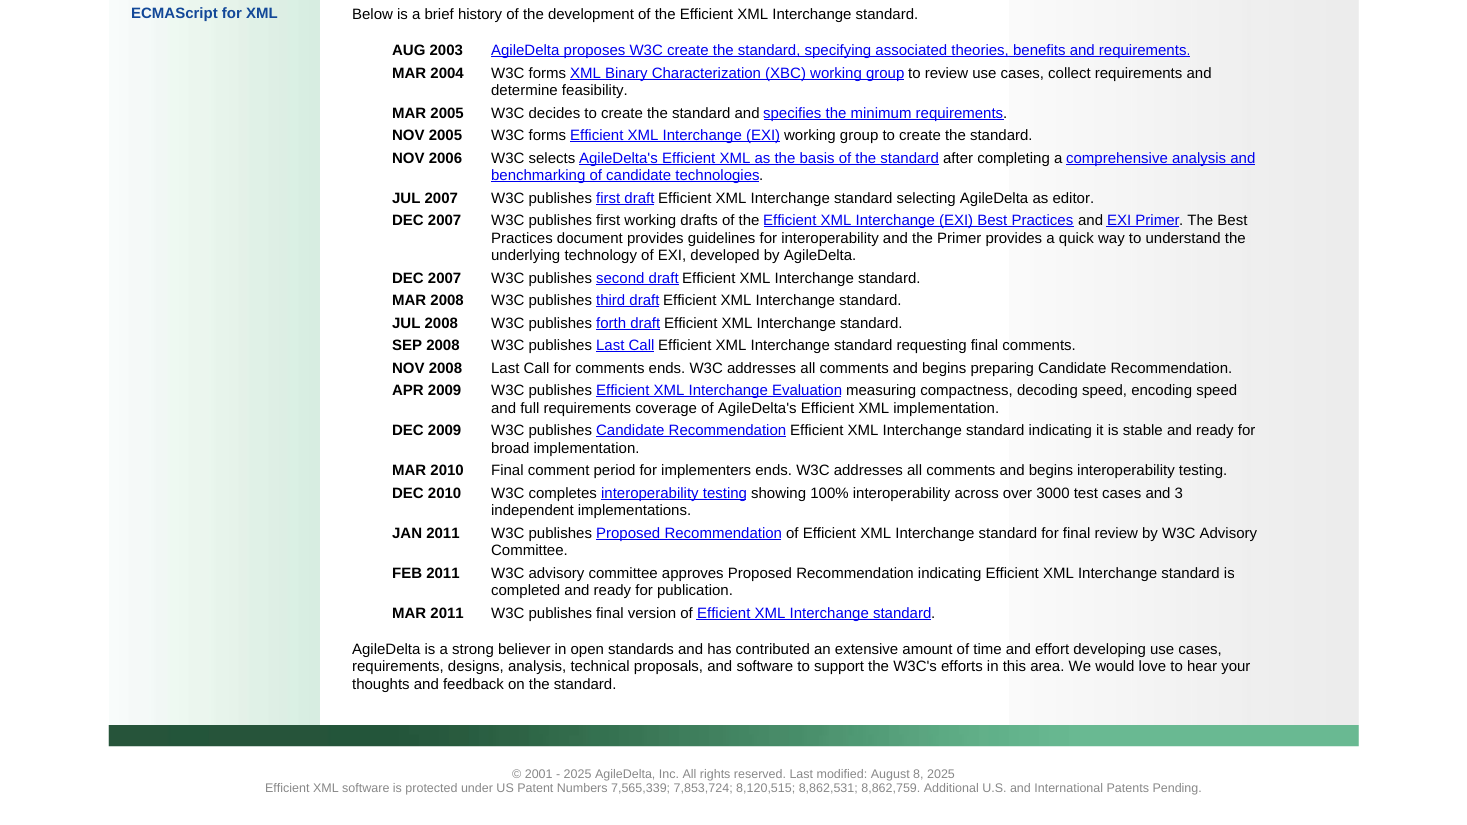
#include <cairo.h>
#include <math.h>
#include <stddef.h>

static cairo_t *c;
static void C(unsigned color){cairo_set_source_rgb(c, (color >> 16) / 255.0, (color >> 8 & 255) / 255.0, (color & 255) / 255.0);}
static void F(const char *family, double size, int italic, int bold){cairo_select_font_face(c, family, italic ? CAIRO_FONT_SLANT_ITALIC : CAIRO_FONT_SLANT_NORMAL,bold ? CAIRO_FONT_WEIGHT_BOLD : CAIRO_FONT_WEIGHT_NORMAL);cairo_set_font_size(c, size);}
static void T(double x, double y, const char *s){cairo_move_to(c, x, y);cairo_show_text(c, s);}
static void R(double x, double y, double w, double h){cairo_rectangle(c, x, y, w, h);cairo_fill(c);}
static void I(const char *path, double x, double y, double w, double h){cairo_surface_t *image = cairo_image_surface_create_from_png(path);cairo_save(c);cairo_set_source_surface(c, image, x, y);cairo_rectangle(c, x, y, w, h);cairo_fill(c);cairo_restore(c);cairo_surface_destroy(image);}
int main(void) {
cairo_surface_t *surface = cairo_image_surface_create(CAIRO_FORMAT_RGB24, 1467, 825);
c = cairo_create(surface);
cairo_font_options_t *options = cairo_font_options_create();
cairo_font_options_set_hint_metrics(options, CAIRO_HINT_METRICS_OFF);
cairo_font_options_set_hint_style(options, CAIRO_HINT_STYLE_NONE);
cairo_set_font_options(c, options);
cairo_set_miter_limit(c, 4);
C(0xffffff);
cairo_paint(c);
I("1.png",109,0,211,725);
F("Liberation Sans",15,0,1);
C(0x134898);
T(131,18,"ECMAScript for XML");
I("2.png",1009,0,350,725);
F("Liberation Sans",15,0,0);
C(0x000000);
T(352,19,"Below is a brief history of the development of the Efficient XML Interchange standard.");
F("Liberation Sans",15,0,1);
T(392,55,"AUG 2003");
C(0x0000ee);
R(491,56,699,1);
F("Liberation Sans",15,0,0);
T(491,55,"AgileDelta proposes W3C create the standard, specifying associated theories, benefits and requirements.");
F("Liberation Sans",15,0,1);
C(0x000000);
T(392,78,"MAR 2004");
F("Liberation Sans",15,0,0);
T(491,78,"W3C forms");
C(0x0000ee);
R(570,79,334,1);
T(570,78,"XML Binary Characterization (XBC) working group");
C(0x000000);
T(908,78,"to review use cases, collect requirements and");
T(491,95,"determine feasibility.");
F("Liberation Sans",15,0,1);
T(392,118,"MAR 2005");
F("Liberation Sans",15,0,0);
T(491,118,"W3C decides to create the standard and");
C(0x0000ee);
R(764,119,240,1);
T(763,118,"specifies the minimum requirements");
C(0x000000);
T(1003,118,".");
F("Liberation Sans",15,0,1);
T(392,140,"NOV 2005");
F("Liberation Sans",15,0,0);
T(491,140,"W3C forms");
C(0x0000ee);
R(570,141,210,1);
T(570,140,"Efficient XML Interchange (EXI)");
C(0x000000);
T(784,140,"working group to create the standard.");
F("Liberation Sans",15,0,1);
T(392,163,"NOV 2006");
F("Liberation Sans",15,0,0);
T(491,163,"W3C selects");
C(0x0000ee);
R(579,164,360,1);
T(579,163,"AgileDelta's Efficient XML as the basis of the standard");
C(0x000000);
T(943,163,"after completing a");
C(0x0000ee);
R(1066,164,189,1);
T(1066,163,"comprehensive analysis and");
R(491,181,268,1);
T(491,180,"benchmarking of candidate technologies");
C(0x000000);
T(759,180,".");
F("Liberation Sans",15,0,1);
T(392,203,"JUL 2007");
F("Liberation Sans",15,0,0);
T(491,203,"W3C publishes");
C(0x0000ee);
T(596,203,"first draft");
R(596,204,58,1);
C(0x000000);
T(658,203,"Efficient XML Interchange standard selecting AgileDelta as editor.");
F("Liberation Sans",15,0,1);
T(392,225,"DEC 2007");
F("Liberation Sans",15,0,0);
T(491,225,"W3C publishes first working drafts of the");
C(0x0000ee);
R(764,226,310,1);
T(763,225,"Efficient XML Interchange (EXI) Best Practices");
C(0x000000);
T(1078,225,"and");
C(0x0000ee);
T(1107,225,"EXI Primer");
R(1106,226,73,1);
C(0x000000);
T(1179,225,". The Best");
T(491,243,"Practices document provides guidelines for interoperability and the Primer provides a quick way to understand the");
T(491,260,"underlying technology of EXI, developed by AgileDelta.");
F("Liberation Sans",15,0,1);
T(392,283,"DEC 2007");
F("Liberation Sans",15,0,0);
T(491,283,"W3C publishes");
C(0x0000ee);
T(596,283,"second draft");
R(596,284,83,1);
C(0x000000);
T(682,283,"Efficient XML Interchange standard.");
F("Liberation Sans",15,0,1);
T(392,305,"MAR 2008");
F("Liberation Sans",15,0,0);
T(491,305,"W3C publishes");
C(0x0000ee);
T(596,305,"third draft");
R(596,306,63,1);
C(0x000000);
T(663,305,"Efficient XML Interchange standard.");
F("Liberation Sans",15,0,1);
T(392,328,"JUL 2008");
F("Liberation Sans",15,0,0);
T(491,328,"W3C publishes");
C(0x0000ee);
T(596,328,"forth draft");
R(596,329,64,1);
C(0x000000);
T(664,328,"Efficient XML Interchange standard.");
F("Liberation Sans",15,0,1);
T(392,350,"SEP 2008");
F("Liberation Sans",15,0,0);
T(491,350,"W3C publishes");
C(0x0000ee);
T(596,350,"Last Call");
R(596,351,58,1);
C(0x000000);
T(658,350,"Efficient XML Interchange standard requesting final comments.");
F("Liberation Sans",15,0,1);
T(392,373,"NOV 2008");
F("Liberation Sans",15,0,0);
T(491,373,"Last Call for comments ends. W3C addresses all comments and begins preparing Candidate Recommendation.");
F("Liberation Sans",15,0,1);
T(392,395,"APR 2009");
F("Liberation Sans",15,0,0);
T(491,395,"W3C publishes");
C(0x0000ee);
R(596,396,245,1);
T(596,395,"Efficient XML Interchange Evaluation");
C(0x000000);
T(846,395,"measuring compactness, decoding speed, encoding speed");
T(491,413,"and full requirements coverage of AgileDelta's Efficient XML implementation.");
F("Liberation Sans",15,0,1);
T(392,435,"DEC 2009");
F("Liberation Sans",15,0,0);
T(491,435,"W3C publishes");
C(0x0000ee);
T(596,435,"Candidate Recommendation");
R(596,436,190,1);
C(0x000000);
T(790,435,"Efficient XML Interchange standard indicating it is stable and ready for");
T(491,453,"broad implementation.");
F("Liberation Sans",15,0,1);
T(392,475,"MAR 2010");
F("Liberation Sans",15,0,0);
T(491,475,"Final comment period for implementers ends. W3C addresses all comments and begins interoperability testing.");
F("Liberation Sans",15,0,1);
T(392,498,"DEC 2010");
F("Liberation Sans",15,0,0);
T(491,498,"W3C completes");
C(0x0000ee);
R(601,499,145,1);
T(601,498,"interoperability testing");
C(0x000000);
T(751,498,"showing 100% interoperability across over 3000 test cases and 3");
T(491,515,"independent implementations.");
F("Liberation Sans",15,0,1);
T(392,538,"JAN 2011");
F("Liberation Sans",15,0,0);
T(491,538,"W3C publishes");
C(0x0000ee);
R(596,539,185,1);
T(596,538,"Proposed Recommendation");
C(0x000000);
T(786,538,"of Efficient XML Interchange standard for final review by W3C Advisory");
T(491,555,"Committee.");
F("Liberation Sans",15,0,1);
T(392,578,"FEB 2011");
F("Liberation Sans",15,0,0);
T(491,578,"W3C advisory committee approves Proposed Recommendation indicating Efficient XML Interchange standard is");
T(491,595,"completed and ready for publication.");
F("Liberation Sans",15,0,1);
T(392,618,"MAR 2011");
F("Liberation Sans",15,0,0);
T(491,618,"W3C publishes final version of");
C(0x0000ee);
R(696,619,235,1);
T(697,618,"Efficient XML Interchange standard");
C(0x000000);
T(931,618,".");
T(352,654,"AgileDelta is a strong believer in open standards and has contributed an extensive amount of time and effort developing use cases,");
T(352,671,"requirements, designs, analysis, technical proposals, and software to support the W3C's efforts in this area. We would love to hear your");
T(352,689,"thoughts and feedback on the standard.");
I("3.png",108,725,1251,22);
F("Liberation Sans",12.5,0,0);
C(0x888888);
T(512,778,"© 2001 - 2025 AgileDelta, Inc. All rights reserved. Last modified: August 8, 2025");
T(265,792,"Efficient XML software is protected under US Patent Numbers 7,565,339; 7,853,724; 8,120,515; 8,862,531; 8,862,759. Additional U.S. and International Patents Pending.");
cairo_surface_write_to_png(surface, "o.png");
cairo_font_options_destroy(options);
cairo_destroy(c);
cairo_surface_destroy(surface);
return 0;
}
